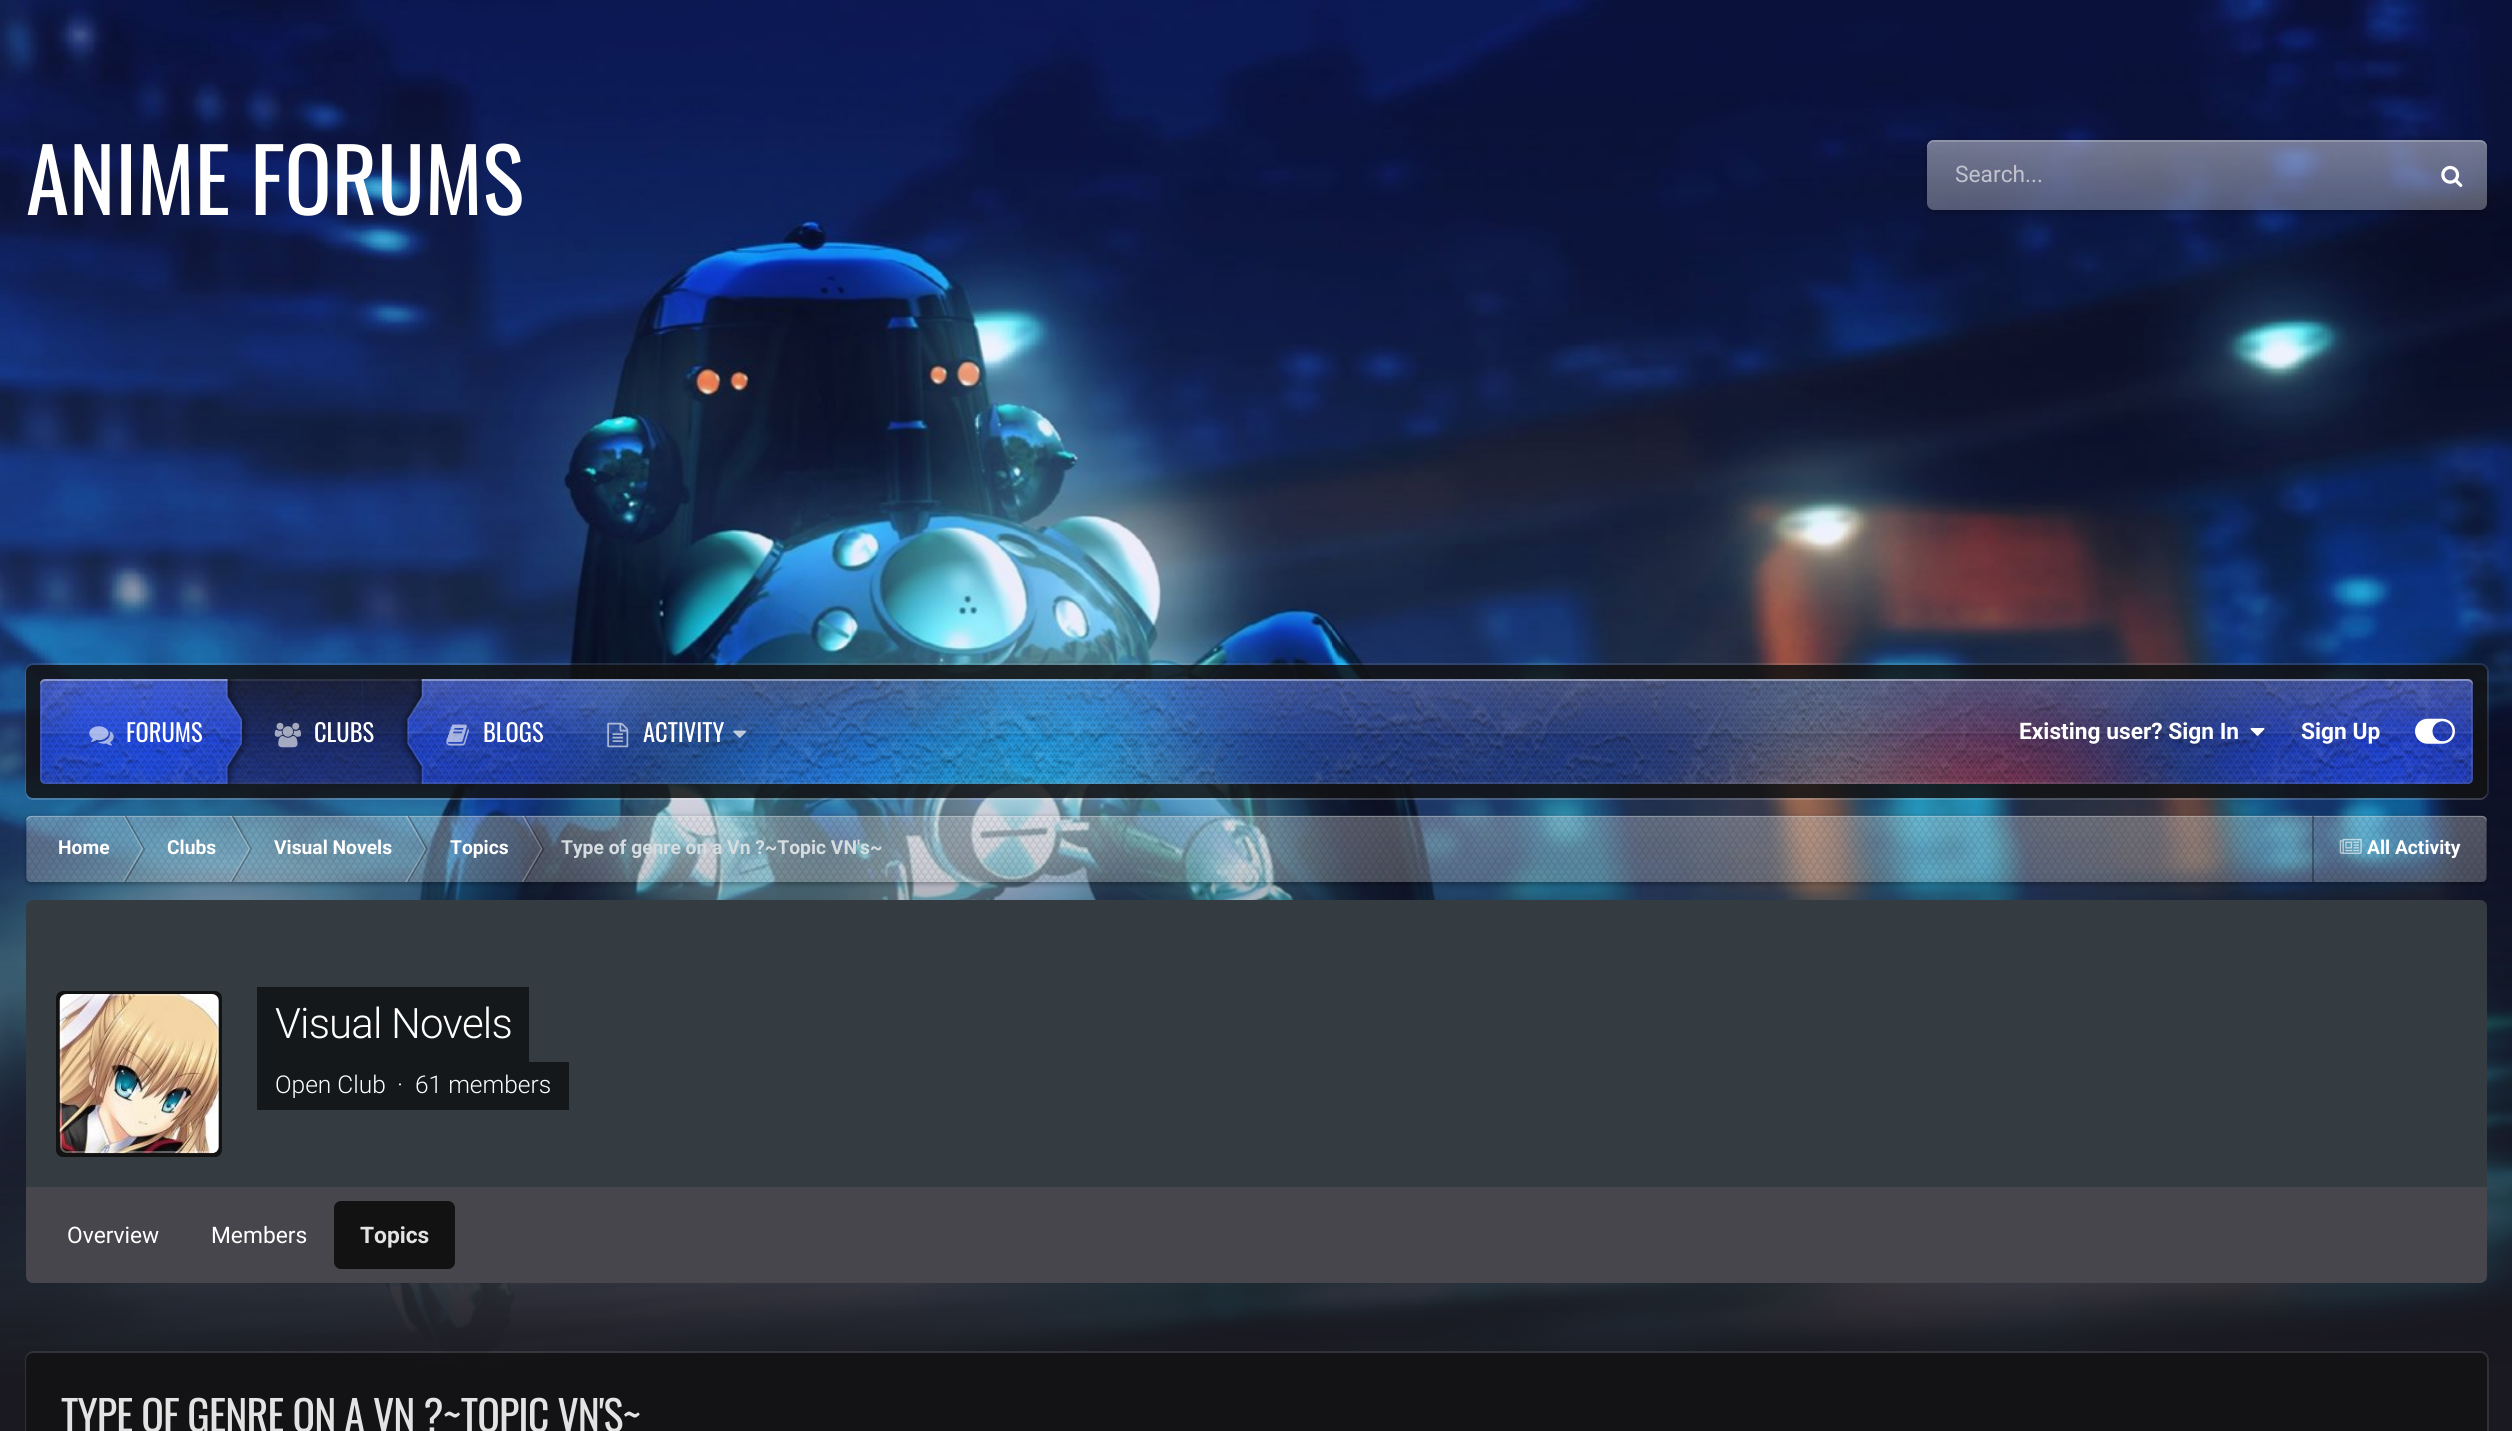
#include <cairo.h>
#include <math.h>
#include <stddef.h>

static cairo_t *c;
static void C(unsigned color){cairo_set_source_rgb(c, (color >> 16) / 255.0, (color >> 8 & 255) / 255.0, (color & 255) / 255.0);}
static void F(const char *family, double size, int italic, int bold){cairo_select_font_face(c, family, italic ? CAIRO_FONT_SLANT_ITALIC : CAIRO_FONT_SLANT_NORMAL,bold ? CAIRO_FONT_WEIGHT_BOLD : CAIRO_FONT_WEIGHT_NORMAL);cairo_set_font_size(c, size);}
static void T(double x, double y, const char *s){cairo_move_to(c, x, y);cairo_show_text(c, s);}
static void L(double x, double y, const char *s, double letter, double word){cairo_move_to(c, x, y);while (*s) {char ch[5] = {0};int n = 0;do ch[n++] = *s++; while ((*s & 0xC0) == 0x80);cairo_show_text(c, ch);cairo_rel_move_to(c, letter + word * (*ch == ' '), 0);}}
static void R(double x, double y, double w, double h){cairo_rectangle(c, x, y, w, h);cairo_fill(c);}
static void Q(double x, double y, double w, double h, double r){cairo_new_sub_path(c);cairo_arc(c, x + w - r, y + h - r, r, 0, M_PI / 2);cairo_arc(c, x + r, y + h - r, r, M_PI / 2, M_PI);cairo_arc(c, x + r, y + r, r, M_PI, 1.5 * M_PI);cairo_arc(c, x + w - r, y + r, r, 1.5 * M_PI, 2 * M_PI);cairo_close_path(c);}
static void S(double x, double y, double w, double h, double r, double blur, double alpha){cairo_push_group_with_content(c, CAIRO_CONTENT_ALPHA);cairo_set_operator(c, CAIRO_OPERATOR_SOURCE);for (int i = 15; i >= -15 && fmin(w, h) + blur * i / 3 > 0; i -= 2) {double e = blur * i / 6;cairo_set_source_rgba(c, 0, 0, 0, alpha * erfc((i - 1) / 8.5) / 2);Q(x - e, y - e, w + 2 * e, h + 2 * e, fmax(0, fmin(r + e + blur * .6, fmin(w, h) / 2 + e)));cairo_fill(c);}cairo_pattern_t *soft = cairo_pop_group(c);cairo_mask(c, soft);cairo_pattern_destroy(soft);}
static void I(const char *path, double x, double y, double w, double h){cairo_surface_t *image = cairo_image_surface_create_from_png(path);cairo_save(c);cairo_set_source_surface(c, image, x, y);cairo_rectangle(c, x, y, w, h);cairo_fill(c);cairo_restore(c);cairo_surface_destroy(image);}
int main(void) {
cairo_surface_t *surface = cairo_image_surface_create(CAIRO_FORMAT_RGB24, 2512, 1431);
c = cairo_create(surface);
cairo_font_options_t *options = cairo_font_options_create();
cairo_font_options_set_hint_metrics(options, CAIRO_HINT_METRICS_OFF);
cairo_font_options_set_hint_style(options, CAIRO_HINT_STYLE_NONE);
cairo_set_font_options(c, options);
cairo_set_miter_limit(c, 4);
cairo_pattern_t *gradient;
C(0x1a1921);
cairo_paint(c);
I("1.png",0,0,2512,1375);
gradient = cairo_pattern_create_linear(1257,707,1257,1414);
cairo_pattern_add_color_stop_rgba(gradient,0,0.102,0.098,0.129,0);
cairo_pattern_add_color_stop_rgba(gradient,.95,0.102,0.098,0.129,1);
cairo_set_source(c,gradient);
cairo_pattern_destroy(gradient);
R(0,721,2512,654);
F("Oswald",87.5,0,0);
C(0xffffff);
T(26,215,"ANIME FORUMS");
cairo_save(c);
cairo_set_fill_rule(c,CAIRO_FILL_RULE_EVEN_ODD);
cairo_new_path(c);
cairo_move_to(c,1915,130);
cairo_line_to(c,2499,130);
cairo_line_to(c,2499,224);
cairo_line_to(c,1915,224);
cairo_close_path(c);
cairo_move_to(c,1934,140);
cairo_line_to(c,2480,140);
cairo_curve_to(c,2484,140,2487,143,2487,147);
cairo_line_to(c,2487,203);
cairo_curve_to(c,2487,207,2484,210,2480,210);
cairo_line_to(c,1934,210);
cairo_curve_to(c,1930,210,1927,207,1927,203);
cairo_line_to(c,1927,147);
cairo_curve_to(c,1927,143,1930,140,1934,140);
cairo_close_path(c);
cairo_clip(c);
C(0x000000);
S(1927,142,560,70,7,3.5,.3);
cairo_restore(c);
gradient = cairo_pattern_create_linear(2207,140,2207,210);
cairo_pattern_add_color_stop_rgba(gradient,0,1,1,1,.43);
cairo_pattern_add_color_stop_rgba(gradient,1,1,1,1,.3);
cairo_set_source(c,gradient);
cairo_pattern_destroy(gradient);
Q(1927,140,560,70,7);
cairo_fill(c);
cairo_set_source_rgba(c,1,1,1,0.2);
cairo_new_path(c);
cairo_move_to(c,1934,142);
cairo_line_to(c,2480,142);
cairo_curve_to(c,2484,142,2487,145,2487,149);
cairo_line_to(c,2487,147);
cairo_curve_to(c,2487,143,2484,140,2480,140);
cairo_line_to(c,1934,140);
cairo_curve_to(c,1930,140,1927,143,1927,147);
cairo_line_to(c,1927,149);
cairo_curve_to(c,1927,145,1930,142,1934,142);
cairo_close_path(c);
cairo_fill(c);
F("Roboto",22.75,0,0);
C(0xc1c3ce);
T(1955,182,"Search...");
I("2.png",2441,165,22,22);
cairo_set_source_rgba(c,1,1,1,0.1);
cairo_new_path(c);
cairo_move_to(c,26,672);
cairo_line_to(c,26,793);
cairo_curve_to(c,26,797,29,800,33,800);
cairo_line_to(c,2480,800);
cairo_curve_to(c,2484,800,2487,797,2487,793);
cairo_line_to(c,2487,672);
cairo_line_to(c,2487,791);
cairo_curve_to(c,2487,795,2484,798,2480,798);
cairo_line_to(c,33,798);
cairo_curve_to(c,29,798,26,795,26,791);
cairo_close_path(c);
cairo_fill(c);
Q(26,664,2462,135,8);
cairo_stroke(c);
cairo_set_source_rgba(c,0.071,0.071,0.075,0.85);
Q(26,665,2461,133,7);
cairo_fill(c);
cairo_save(c);
cairo_set_fill_rule(c,CAIRO_FILL_RULE_EVEN_ODD);
cairo_new_path(c);
cairo_move_to(c,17,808);
cairo_line_to(c,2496,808);
cairo_line_to(c,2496,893);
cairo_line_to(c,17,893);
cairo_close_path(c);
cairo_move_to(c,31,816);
cairo_line_to(c,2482,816);
cairo_curve_to(c,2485,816,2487,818,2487,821);
cairo_line_to(c,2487,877);
cairo_curve_to(c,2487,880,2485,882,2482,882);
cairo_line_to(c,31,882);
cairo_curve_to(c,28,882,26,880,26,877);
cairo_line_to(c,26,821);
cairo_curve_to(c,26,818,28,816,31,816);
cairo_close_path(c);
cairo_clip(c);
C(0x000000);
S(26,817,2461,67,5,2.5,.3);
cairo_restore(c);
I("14.png",26,815,2461,67);
cairo_set_source_rgba(c,1,1,1,0.3);
cairo_new_path(c);
cairo_move_to(c,32,817);
cairo_line_to(c,2482,817);
cairo_curve_to(c,2484,817,2487,820,2487,822);
cairo_line_to(c,2487,821);
cairo_curve_to(c,2487,818,2485,816,2482,816);
cairo_line_to(c,31,816);
cairo_curve_to(c,28,816,26,818,26,821);
cairo_line_to(c,26,822);
cairo_curve_to(c,26,820,29,817,32,817);
cairo_close_path(c);
cairo_fill(c);
cairo_set_source_rgba(c,1,1,1,0.25);
cairo_new_path(c);
cairo_move_to(c,124.5,816);
cairo_line_to(c,123,816);
cairo_line_to(c,141.5,849);
cairo_line_to(c,143.5,849);
cairo_close_path(c);
cairo_fill(c);
cairo_set_source_rgba(c,0,0,0,0.3);
cairo_new_path(c);
cairo_move_to(c,126.5,816);
cairo_line_to(c,124.5,816);
cairo_line_to(c,143.5,849);
cairo_line_to(c,145,849);
cairo_close_path(c);
cairo_fill(c);
cairo_set_source_rgba(c,1,1,1,0.25);
cairo_new_path(c);
cairo_move_to(c,122.5,882);
cairo_line_to(c,124,882);
cairo_line_to(c,143.5,849);
cairo_line_to(c,141.5,849);
cairo_close_path(c);
cairo_fill(c);
cairo_set_source_rgba(c,0,0,0,0.3);
cairo_new_path(c);
cairo_move_to(c,124,882);
cairo_line_to(c,126,882);
cairo_line_to(c,145,849);
cairo_line_to(c,143.5,849);
cairo_close_path(c);
cairo_fill(c);
cairo_set_source_rgba(c,1,1,1,0.25);
cairo_new_path(c);
cairo_move_to(c,231.5,816);
cairo_line_to(c,230,816);
cairo_line_to(c,248.5,849);
cairo_line_to(c,250.5,849);
cairo_close_path(c);
cairo_fill(c);
cairo_set_source_rgba(c,0,0,0,0.3);
cairo_new_path(c);
cairo_move_to(c,233.5,816);
cairo_line_to(c,231.5,816);
cairo_line_to(c,250.5,849);
cairo_line_to(c,252,849);
cairo_close_path(c);
cairo_fill(c);
cairo_set_source_rgba(c,1,1,1,0.25);
cairo_new_path(c);
cairo_move_to(c,229.5,882);
cairo_line_to(c,231,882);
cairo_line_to(c,250.5,849);
cairo_line_to(c,248.5,849);
cairo_close_path(c);
cairo_fill(c);
cairo_set_source_rgba(c,0,0,0,0.3);
cairo_new_path(c);
cairo_move_to(c,231,882);
cairo_line_to(c,233,882);
cairo_line_to(c,252,849);
cairo_line_to(c,250.5,849);
cairo_close_path(c);
cairo_fill(c);
cairo_set_source_rgba(c,1,1,1,0.25);
cairo_new_path(c);
cairo_move_to(c,407.5,816);
cairo_line_to(c,405.5,816);
cairo_line_to(c,424.5,849);
cairo_line_to(c,426,849);
cairo_close_path(c);
cairo_fill(c);
cairo_set_source_rgba(c,0,0,0,0.3);
cairo_new_path(c);
cairo_move_to(c,409,816);
cairo_line_to(c,407.5,816);
cairo_line_to(c,426,849);
cairo_line_to(c,428,849);
cairo_close_path(c);
cairo_fill(c);
cairo_set_source_rgba(c,1,1,1,0.25);
cairo_new_path(c);
cairo_move_to(c,405,882);
cairo_line_to(c,407,882);
cairo_line_to(c,426,849);
cairo_line_to(c,424.5,849);
cairo_close_path(c);
cairo_fill(c);
cairo_set_source_rgba(c,0,0,0,0.3);
cairo_new_path(c);
cairo_move_to(c,407,882);
cairo_line_to(c,408.5,882);
cairo_line_to(c,428,849);
cairo_line_to(c,426,849);
cairo_close_path(c);
cairo_fill(c);
cairo_set_source_rgba(c,1,1,1,0.25);
cairo_new_path(c);
cairo_move_to(c,524,816);
cairo_line_to(c,522,816);
cairo_line_to(c,541,849);
cairo_line_to(c,542.5,849);
cairo_close_path(c);
cairo_fill(c);
cairo_set_source_rgba(c,0,0,0,0.3);
cairo_new_path(c);
cairo_move_to(c,525.5,816);
cairo_line_to(c,524,816);
cairo_line_to(c,542.5,849);
cairo_line_to(c,544.5,849);
cairo_close_path(c);
cairo_fill(c);
cairo_set_source_rgba(c,1,1,1,0.25);
cairo_new_path(c);
cairo_move_to(c,521.5,882);
cairo_line_to(c,523.5,882);
cairo_line_to(c,542.5,849);
cairo_line_to(c,541,849);
cairo_close_path(c);
cairo_fill(c);
cairo_set_source_rgba(c,0,0,0,0.3);
cairo_new_path(c);
cairo_move_to(c,523.5,882);
cairo_line_to(c,525,882);
cairo_line_to(c,544.5,849);
cairo_line_to(c,542.5,849);
cairo_close_path(c);
cairo_fill(c);
R(2312,816,2,66);
I("15.png",2339,838,23,16);
C(0x353c41);
cairo_new_path(c);
cairo_move_to(c,33,900);
cairo_line_to(c,2480,900);
cairo_curve_to(c,2484,900,2487,903,2487,907);
cairo_line_to(c,2487,1187);
cairo_line_to(c,26,1187);
cairo_line_to(c,26,907);
cairo_curve_to(c,26,903,29,900,33,900);
cairo_close_path(c);
cairo_fill(c);
C(0x121213);
Q(58,993,162,162,5);
cairo_fill_preserve(c);
cairo_set_line_width(c,4);
cairo_stroke(c);
I("16.png",59,994,160,160);
Q(61,995,157,157,6);
cairo_set_source_rgba(c,1,1,1,0.3);
cairo_set_line_width(c,2);
cairo_stroke(c);
C(0x15181a);
R(257,987,272,75);
cairo_save(c);
Q(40,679,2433,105,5);
cairo_clip(c);
C(0x1a1731);
S(-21,618,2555,227,0,61,.9);
cairo_restore(c);
I("3.png",40,679,2433,105);
cairo_set_source_rgba(c,1,1,1,0.1);
Q(40,679,2433,105,5);
cairo_fill(c);
I("4.png",40,679,2433,105);
cairo_set_source_rgba(c,1,1,1,0.3);
cairo_new_path(c);
cairo_move_to(c,46,681);
cairo_curve_to(c,43,681,40,683,40,686);
cairo_line_to(c,40,684);
cairo_curve_to(c,40,681,42,679,45,679);
cairo_line_to(c,2468,679);
cairo_curve_to(c,2471,679,2473,681,2473,684);
cairo_line_to(c,2473,686);
cairo_curve_to(c,2473,683,2470,681,2468,681);
cairo_close_path(c);
cairo_fill(c);
Q(41,680,2431,103,4);
cairo_set_source_rgba(c,1,1,1,0.1);
cairo_stroke(c);
I("5.png",89,726,25,20);
F("Oswald",24.5,0,0);
C(0xffffff);
T(126,742,"FORUMS");
I("6.png",225,679,138,105);
I("7.png",362,679,62,105);
I("8.png",274,722,27,26);
T(314,742,"CLUBS");
I("9.png",446,724,23,22);
T(483,742,"BLOGS");
I("10.png",607,722,22,26);
T(643,742,"ACTIVITY");
I("11.png",733,730,14,8);
F("Roboto",22.75,0,1);
T(2019,739,"Existing user? Sign In");
I("12.png",2250,728,15,8);
T(2301,739,"Sign Up");
I("13.png",2415,718,40,26);
F("Roboto",19.25,0,1);
T(58,854,"Home");
T(167,854,"Clubs");
T(274,854,"Visual Novels");
T(450,854,"Topics");
C(0xd6dde1);
T(561,854,"Type of genre on a Vn ?~Topic VN's~");
C(0xffffff);
T(2367,854,"All Activity");
F("Roboto Light",42,0,0);
L(275,1038,"Visual Novels",-.85,0);
C(0x15181a);
R(257,1062,312,48);
F("Roboto Light",24.5,0,0);
C(0xffffff);
T(275,1093,"Open Club");
T(397,1093,"·");
T(415,1093,"61 members");
C(0x46464c);
cairo_new_path(c);
cairo_move_to(c,26,1187);
cairo_line_to(c,2487,1187);
cairo_line_to(c,2487,1276);
cairo_curve_to(c,2487,1280,2484,1283,2480,1283);
cairo_line_to(c,33,1283);
cairo_curve_to(c,29,1283,26,1280,26,1276);
cairo_close_path(c);
cairo_fill(c);
F("Roboto",22.75,0,0);
C(0xffffff);
T(67,1243,"Overview");
T(211,1243,"Members");
C(0x121213);
Q(334,1201,121,68,7);
cairo_fill(c);
F("Roboto",22.75,0,1);
C(0xe3e3e3);
T(360,1243,"Topics");
Q(26,1352,2462,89,8);
cairo_set_source_rgba(c,1,1,1,0.1);
cairo_stroke(c);
cairo_set_source_rgba(c,0.071,0.071,0.075,0.85);
Q(26,1353,2461,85,7);
cairo_fill(c);
F("Oswald",42,0,0);
C(0xe3e3e3);
L(61,1432,"TYPE OF GENRE ON A VN ?~TOPIC VN'S~",-.85,0);
cairo_surface_write_to_png(surface, "o.png");
cairo_font_options_destroy(options);
cairo_destroy(c);
cairo_surface_destroy(surface);
return 0;
}
